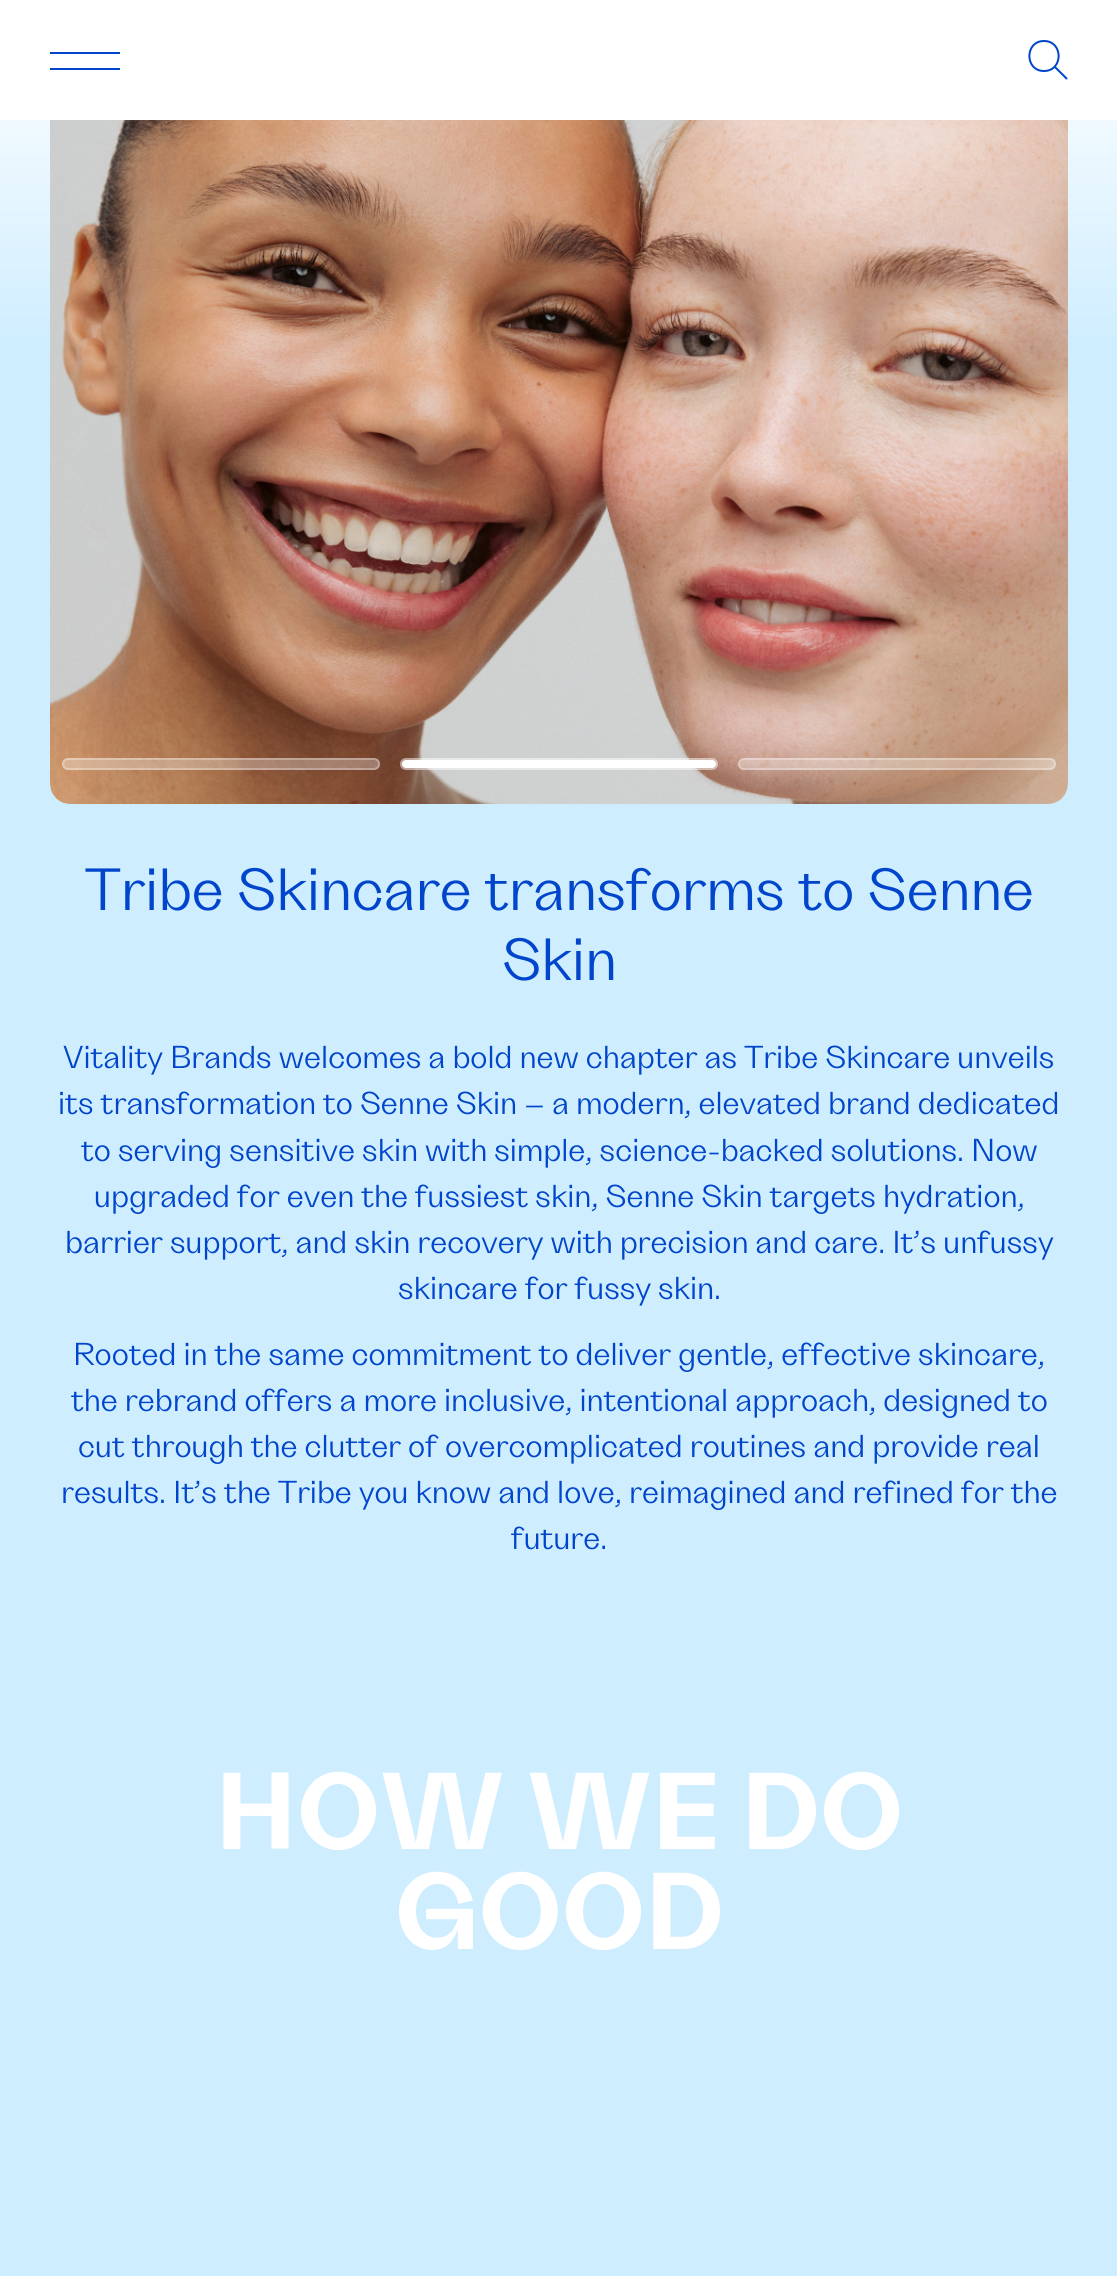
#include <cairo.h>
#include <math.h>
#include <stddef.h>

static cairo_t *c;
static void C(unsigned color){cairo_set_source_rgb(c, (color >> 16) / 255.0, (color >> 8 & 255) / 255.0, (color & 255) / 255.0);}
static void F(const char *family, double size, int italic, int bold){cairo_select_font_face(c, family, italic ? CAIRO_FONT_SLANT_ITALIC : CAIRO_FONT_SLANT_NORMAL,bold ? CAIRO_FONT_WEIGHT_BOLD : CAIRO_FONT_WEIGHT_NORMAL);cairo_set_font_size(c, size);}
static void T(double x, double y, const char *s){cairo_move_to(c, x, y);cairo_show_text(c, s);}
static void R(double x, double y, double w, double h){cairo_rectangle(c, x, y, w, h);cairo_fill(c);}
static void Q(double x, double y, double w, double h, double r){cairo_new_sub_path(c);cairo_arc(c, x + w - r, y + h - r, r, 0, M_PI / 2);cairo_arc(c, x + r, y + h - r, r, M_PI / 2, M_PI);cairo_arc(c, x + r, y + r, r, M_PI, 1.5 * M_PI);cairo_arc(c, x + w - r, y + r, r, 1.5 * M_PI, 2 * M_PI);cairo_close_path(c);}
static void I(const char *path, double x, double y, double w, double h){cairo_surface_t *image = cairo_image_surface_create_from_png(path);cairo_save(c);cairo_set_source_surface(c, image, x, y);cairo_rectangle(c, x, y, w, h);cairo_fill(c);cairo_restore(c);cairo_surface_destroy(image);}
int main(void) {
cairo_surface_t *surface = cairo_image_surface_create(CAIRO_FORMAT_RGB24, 1117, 2276);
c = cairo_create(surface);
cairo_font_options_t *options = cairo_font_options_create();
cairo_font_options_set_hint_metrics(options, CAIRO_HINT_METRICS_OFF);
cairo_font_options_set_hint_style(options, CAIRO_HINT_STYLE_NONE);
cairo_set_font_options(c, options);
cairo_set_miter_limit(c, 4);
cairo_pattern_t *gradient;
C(0xceedff);
cairo_paint(c);
C(0xffffff);
R(0,0,1117,120);
C(0x0045cb);
R(50,52,70,2);
R(50,68,70,2);
cairo_new_path(c);
cairo_move_to(c,1044,71);
cairo_curve_to(c,1063.5,71,1063.5,41,1044,41);
cairo_curve_to(c,1024.5,41,1024.5,71,1044,71);
cairo_close_path(c);
cairo_move_to(c,1067,79);
cairo_line_to(c,1055,67);
cairo_stroke(c);
gradient = cairo_pattern_create_linear(559,16,559,354);
cairo_pattern_add_color_stop_rgba(gradient,0,1,1,1,1);
cairo_pattern_add_color_stop_rgba(gradient,1,0.808,0.929,1,1);
cairo_set_source(c,gradient);
cairo_pattern_destroy(gradient);
R(0,120,1117,217);
I("1.png",50,120,1018,684);
cairo_set_source_rgba(c,1,1,1,0.3);
Q(62,758,318,12,6);
cairo_fill(c);
Q(63,759,316,10,5);
cairo_stroke(c);
Q(400,758,318,12,6);
cairo_fill(c);
Q(401,759,316,10,5);
cairo_stroke(c);
C(0xffffff);
Q(402,760,314,8,4);
cairo_fill(c);
cairo_set_source_rgba(c,1,1,1,0.3);
Q(738,758,318,12,6);
cairo_fill(c);
Q(739,759,316,10,5);
cairo_stroke(c);
F("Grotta",60,0,0);
C(0x0045cb);
T(85,910,"Tribe Skincare transforms to Senne");
T(502,980,"Skin");
F("Grotta",32,0,0);
T(63,1068,"Vitality Brands welcomes a bold new chapter as Tribe Skincare unveils");
T(58,1114,"its transformation to Senne Skin – a modern, elevated brand dedicated");
T(81,1161,"to serving sensitive skin with simple, science-backed solutions. Now");
T(94,1207,"upgraded for even the fussiest skin, Senne Skin targets hydration,");
T(65,1253,"barrier support, and skin recovery with precision and care. It’s unfussy");
T(398,1299,"skincare for fussy skin.");
T(73,1365,"Rooted in the same commitment to deliver gentle, effective skincare,");
T(71,1411,"the rebrand offers a more inclusive, intentional approach, designed to");
T(78,1457,"cut through the clutter of overcomplicated routines and provide real");
T(61,1503,"results. It’s the Tribe you know and love, reimagined and refined for the");
T(511,1549,"future.");
F("Grotta",110,0,1);
C(0xffffff);
T(215,1849,"HOW WE DO");
T(395,1949,"GOOD");
cairo_surface_write_to_png(surface, "o.png");
cairo_font_options_destroy(options);
cairo_destroy(c);
cairo_surface_destroy(surface);
return 0;
}
